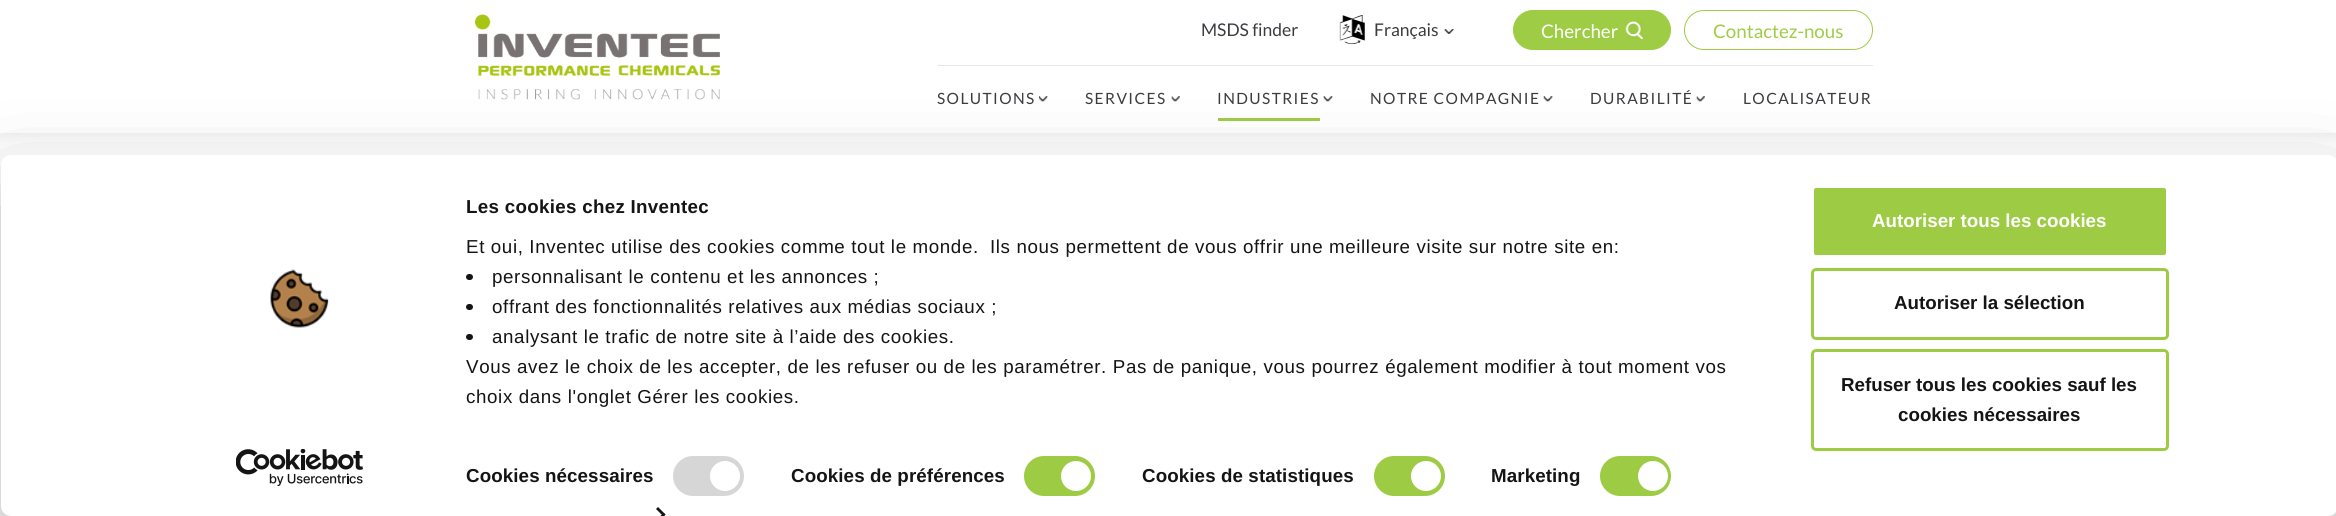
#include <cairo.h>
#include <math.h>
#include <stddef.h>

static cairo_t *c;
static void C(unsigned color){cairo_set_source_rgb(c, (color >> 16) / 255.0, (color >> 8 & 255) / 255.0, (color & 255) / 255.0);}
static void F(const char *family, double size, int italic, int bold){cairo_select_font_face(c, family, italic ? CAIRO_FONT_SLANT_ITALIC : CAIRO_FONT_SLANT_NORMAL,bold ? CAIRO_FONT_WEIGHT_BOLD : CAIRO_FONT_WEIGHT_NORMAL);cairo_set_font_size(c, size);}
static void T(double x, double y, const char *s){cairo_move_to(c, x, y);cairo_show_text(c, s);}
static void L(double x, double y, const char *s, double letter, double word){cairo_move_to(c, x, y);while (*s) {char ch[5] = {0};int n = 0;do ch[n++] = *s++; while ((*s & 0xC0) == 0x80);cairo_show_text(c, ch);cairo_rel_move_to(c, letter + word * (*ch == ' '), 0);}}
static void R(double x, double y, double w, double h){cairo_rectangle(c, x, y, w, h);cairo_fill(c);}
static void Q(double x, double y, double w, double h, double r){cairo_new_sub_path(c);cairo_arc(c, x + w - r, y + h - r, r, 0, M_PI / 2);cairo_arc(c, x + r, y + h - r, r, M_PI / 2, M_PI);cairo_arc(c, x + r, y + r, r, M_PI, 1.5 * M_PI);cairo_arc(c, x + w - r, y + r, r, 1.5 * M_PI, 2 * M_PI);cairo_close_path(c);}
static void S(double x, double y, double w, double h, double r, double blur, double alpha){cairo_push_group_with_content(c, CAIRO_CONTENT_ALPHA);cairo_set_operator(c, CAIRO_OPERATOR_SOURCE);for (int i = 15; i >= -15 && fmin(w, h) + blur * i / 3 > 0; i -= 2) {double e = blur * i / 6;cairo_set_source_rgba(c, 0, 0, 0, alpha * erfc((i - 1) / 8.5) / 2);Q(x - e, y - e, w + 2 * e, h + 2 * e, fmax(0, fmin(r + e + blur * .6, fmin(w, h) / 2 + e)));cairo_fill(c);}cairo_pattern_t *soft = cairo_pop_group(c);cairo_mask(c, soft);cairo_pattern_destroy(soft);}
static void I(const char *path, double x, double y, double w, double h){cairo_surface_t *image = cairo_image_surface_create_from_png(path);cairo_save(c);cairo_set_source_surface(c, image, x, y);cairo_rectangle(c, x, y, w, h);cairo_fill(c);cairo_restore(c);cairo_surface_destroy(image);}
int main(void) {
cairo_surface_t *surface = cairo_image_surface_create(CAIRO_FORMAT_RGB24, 2336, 516);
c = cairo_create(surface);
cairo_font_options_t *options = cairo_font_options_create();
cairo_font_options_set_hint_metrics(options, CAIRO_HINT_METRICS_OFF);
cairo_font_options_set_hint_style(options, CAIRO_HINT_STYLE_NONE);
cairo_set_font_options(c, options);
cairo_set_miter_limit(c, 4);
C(0xffffff);
cairo_paint(c);
C(0x000000);
S(0,0,2336,133,0,8,.1);
C(0xffffff);
R(0,0,2336,133);
I("1.png",475,14,245,86);
F("Lato",17.5,0,0);
C(0x3b3c40);
T(1201,36,"MSDS finder");
I("2.png",1339,15,26,30);
T(1374,36,"Français");
I("3.png",1444,29,10,5);
C(0x9ecc45);
Q(1513.5,10.5,157,39,19.5);
cairo_fill_preserve(c);
cairo_set_line_width(c,1);
cairo_stroke(c);
F("Lato",18.75,0,0);
C(0xffffff);
T(1541,38,"Chercher");
I("4.png",1625,21,18,18);
Q(1684.5,10.5,188,39,19.5);
C(0x9ecc45);
cairo_stroke(c);
T(1713,38,"Contactez-nous");
C(0xe6e6e6);
R(938,65,935,1);
F("Lato",15.5,0,0);
C(0x3b3c40);
L(937,104,"SOLUTIONS",1.4,0);
I("5.png",1039,96,9,6);
L(1085,104,"SERVICES",1.4,0);
I("6.png",1171,96,9,6);
C(0x9ecc45);
R(1218,118,102,3);
C(0x3b3c40);
L(1217,104,"INDUSTRIES",1.4,0);
I("7.png",1323,96,10,6);
L(1370,104,"NOTRE COMPAGNIE",1.4,0);
I("8.png",1543,96,10,6);
L(1590,104,"DURABILITÉ",1.4,0);
I("6.png",1696,96,9,6);
L(1743,104,"LOCALISATEUR",1.4,0);
C(0x000000);
S(1,193,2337,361,10,44,.3);
C(0xffffff);
Q(1,155,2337,361,10);
cairo_fill(c);
I("9.png",270,269,59,59);
I("10.png",236,449,127,37);
F("Liberation Sans",18.75,0,1);
C(0x141414);
L(466,213,"Les cookies chez Inventec",.3,0);
F("Liberation Sans",18.75,0,0);
L(466,253,"Et oui, Inventec utilise des cookies comme tout le monde.",.62,0);
L(990,253,"Ils nous permettent de vous offrir une meilleure visite sur notre site en:",.62,0);
Q(466,274,7,6,3);
cairo_fill(c);
L(492,283,"personnalisant le contenu et les annonces ;",.62,0);
Q(466,304,7,6,3);
cairo_fill(c);
L(492,313,"offrant des fonctionnalités relatives aux médias sociaux ;",.62,0);
Q(466,334,7,6,3);
cairo_fill(c);
L(492,343,"analysant le trafic de notre site à l’aide des cookies.",.62,0);
L(466,373,"Vous avez le choix de les accepter, de les refuser ou de les paramétrer. Pas de panique, vous pourrez également modifier à tout moment vos",.62,0);
L(466,403,"choix dans l'onglet Gérer les cookies.",.62,0);
F("Liberation Sans",18.75,0,1);
L(466,482,"Cookies nécessaires",.1,0);
C(0xd6d6d6);
Q(673,456,71,40,20);
cairo_fill(c);
C(0xffffff);
cairo_arc(c,725,476,15,0,2 * M_PI);
cairo_fill(c);
C(0x141414);
L(791,482,"Cookies de préférences",.1,0);
C(0x9dcc44);
Q(1024,456,71,40,20);
cairo_fill(c);
C(0xffffff);
cairo_arc(c,1076,476,15,0,2 * M_PI);
cairo_fill(c);
C(0x141414);
L(1142,482,"Cookies de statistiques",.1,0);
C(0x9dcc44);
Q(1374,456,71,40,20);
cairo_fill(c);
C(0xffffff);
cairo_arc(c,1426,476,15,0,2 * M_PI);
cairo_fill(c);
C(0x141414);
L(1491,482,"Marketing",.1,0);
C(0x9dcc44);
Q(1600,456,71,40,20);
cairo_fill(c);
C(0xffffff);
cairo_arc(c,1653,476,15,0,2 * M_PI);
cairo_fill(c);
C(0x141414);
cairo_new_path(c);
cairo_move_to(c,658,507);
cairo_line_to(c,665.5,514.5);
cairo_line_to(c,663.5,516.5);
cairo_line_to(c,656,509);
cairo_close_path(c);
cairo_fill(c);
cairo_new_path(c);
cairo_move_to(c,663.5,513);
cairo_line_to(c,665.5,514.5);
cairo_line_to(c,664,516);
cairo_line_to(c,660.5,516);
cairo_close_path(c);
cairo_fill(c);
C(0x9dcc44);
Q(1812.5,186.5,355,70,3.5);
cairo_fill_preserve(c);
C(0xffffff);
cairo_set_line_width(c,3);
cairo_stroke(c);
T(1872,227,"Autoriser tous les cookies");
Q(1812.5,269.5,355,69,3.5);
C(0x9dcc44);
cairo_stroke(c);
C(0x141414);
T(1894,309,"Autoriser la sélection");
Q(1812.5,350.5,355,99,3.5);
C(0x9dcc44);
cairo_stroke(c);
C(0x141414);
T(1841,391,"Refuser tous les cookies sauf les");
T(1898,421,"cookies nécessaires");
cairo_surface_write_to_png(surface, "o.png");
cairo_font_options_destroy(options);
cairo_destroy(c);
cairo_surface_destroy(surface);
return 0;
}
